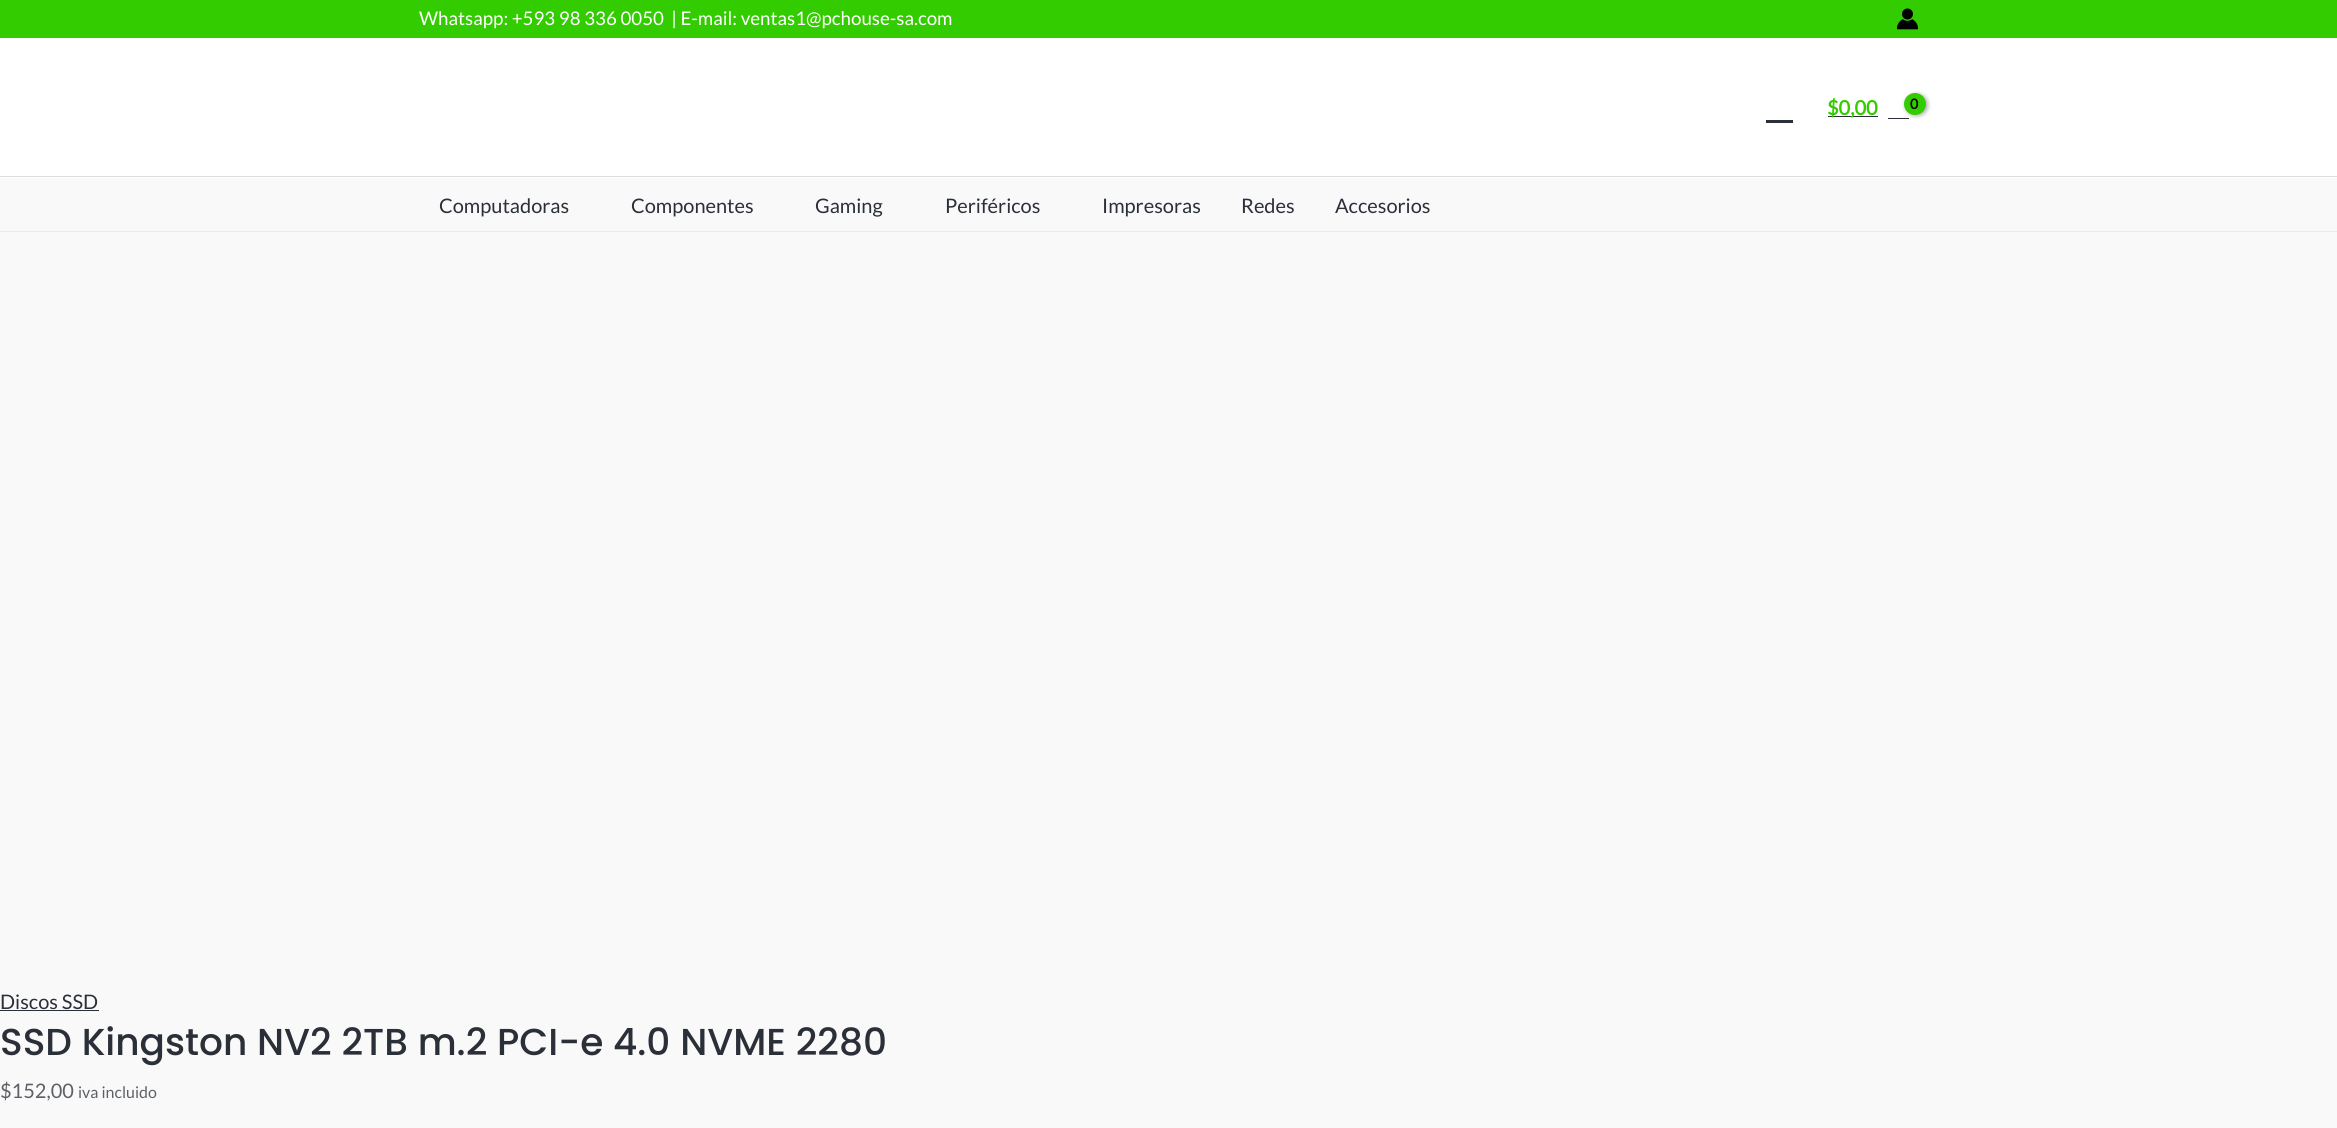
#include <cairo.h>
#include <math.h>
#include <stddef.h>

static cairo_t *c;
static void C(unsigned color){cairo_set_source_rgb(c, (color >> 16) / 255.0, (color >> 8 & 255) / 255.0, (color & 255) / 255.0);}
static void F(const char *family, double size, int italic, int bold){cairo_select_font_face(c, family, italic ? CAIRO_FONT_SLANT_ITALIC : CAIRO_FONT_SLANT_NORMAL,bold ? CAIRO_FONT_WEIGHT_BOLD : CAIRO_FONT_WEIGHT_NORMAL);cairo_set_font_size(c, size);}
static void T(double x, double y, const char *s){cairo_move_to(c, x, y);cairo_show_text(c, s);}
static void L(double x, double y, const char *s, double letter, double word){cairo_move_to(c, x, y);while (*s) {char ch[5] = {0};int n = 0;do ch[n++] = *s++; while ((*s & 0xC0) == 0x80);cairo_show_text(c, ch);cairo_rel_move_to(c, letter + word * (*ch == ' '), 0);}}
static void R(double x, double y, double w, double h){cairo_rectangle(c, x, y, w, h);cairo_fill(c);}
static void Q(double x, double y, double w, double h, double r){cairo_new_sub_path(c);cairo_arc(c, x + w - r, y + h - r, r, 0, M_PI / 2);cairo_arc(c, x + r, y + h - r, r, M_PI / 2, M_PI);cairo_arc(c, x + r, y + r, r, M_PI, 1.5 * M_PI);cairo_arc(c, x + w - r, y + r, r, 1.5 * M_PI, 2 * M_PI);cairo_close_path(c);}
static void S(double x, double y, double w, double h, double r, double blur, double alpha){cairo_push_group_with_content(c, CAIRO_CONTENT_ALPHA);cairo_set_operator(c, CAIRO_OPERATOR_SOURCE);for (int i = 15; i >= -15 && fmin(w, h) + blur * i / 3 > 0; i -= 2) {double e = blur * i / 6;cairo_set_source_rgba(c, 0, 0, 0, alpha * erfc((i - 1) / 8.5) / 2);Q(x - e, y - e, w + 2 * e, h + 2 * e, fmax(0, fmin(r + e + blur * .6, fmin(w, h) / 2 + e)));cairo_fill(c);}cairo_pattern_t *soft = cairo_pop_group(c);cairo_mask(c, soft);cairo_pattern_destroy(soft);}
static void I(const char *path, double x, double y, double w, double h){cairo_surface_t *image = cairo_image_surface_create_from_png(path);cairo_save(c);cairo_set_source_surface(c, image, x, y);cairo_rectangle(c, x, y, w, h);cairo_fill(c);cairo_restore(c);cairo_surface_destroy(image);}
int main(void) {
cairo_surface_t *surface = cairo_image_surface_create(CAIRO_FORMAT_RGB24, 2337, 1128);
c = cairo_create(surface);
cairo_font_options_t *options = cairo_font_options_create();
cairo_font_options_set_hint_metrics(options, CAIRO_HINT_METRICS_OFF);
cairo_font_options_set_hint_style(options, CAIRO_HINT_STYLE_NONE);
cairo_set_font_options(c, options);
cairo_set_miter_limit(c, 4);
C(0xf9f9f9);
cairo_paint(c);
C(0x33cc00);
R(0,0,2337,38);
F("Lato",18.75,0,0);
C(0xffffff);
T(419,25,"Whatsapp: +593 98 336 0050  | E-mail: ventas1@pchouse-sa.com");
I("1.png",1897,8,22,22);
R(0,38,2337,140);
C(0xdddddd);
R(0,176,2337,1);
C(0x2b2f38);
R(1828,116,50,1);
F("Lato",20,0,1);
C(0x33cc00);
T(1827,115,"$0,00");
C(0x2b2f38);
R(1888,118,21,1);
C(0x000000);
S(1905,94,23,22,11,2,.3);
C(0x33cc00);
cairo_arc(c,1915,104,11,0,2 * M_PI);
cairo_fill(c);
F("Lato",14,0,1);
C(0x000000);
L(1910,109,"0",-1,0);
C(0x2b2f38);
R(1766,120,27,3);
C(0xeaeaea);
R(0,231,2337,1);
F("Lato",20,0,0);
C(0x2b2f38);
T(439,213,"Computadoras");
T(631,213,"Componentes");
T(815,213,"Gaming");
T(945,213,"Periféricos");
T(1102,213,"Impresoras");
T(1241,213,"Redes");
T(1335,213,"Accesorios");
T(0,1009,"Discos SSD");
R(0,1010,99,1);
F("Poppins Medium",37.5,0,0);
T(0,1055,"SSD Kingston NV2 2TB m.2 PCI-e 4.0 NVME 2280");
F("Lato",20,0,0);
C(0x5d6167);
T(0,1098,"$152,00");
F("Lato",16,0,0);
T(78,1098,"iva incluido");
cairo_surface_write_to_png(surface, "o.png");
cairo_font_options_destroy(options);
cairo_destroy(c);
cairo_surface_destroy(surface);
return 0;
}
